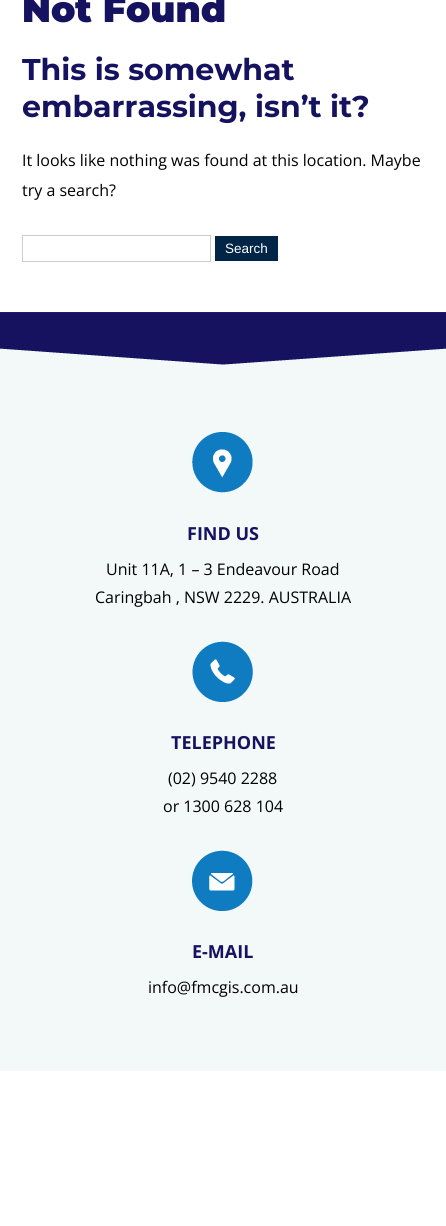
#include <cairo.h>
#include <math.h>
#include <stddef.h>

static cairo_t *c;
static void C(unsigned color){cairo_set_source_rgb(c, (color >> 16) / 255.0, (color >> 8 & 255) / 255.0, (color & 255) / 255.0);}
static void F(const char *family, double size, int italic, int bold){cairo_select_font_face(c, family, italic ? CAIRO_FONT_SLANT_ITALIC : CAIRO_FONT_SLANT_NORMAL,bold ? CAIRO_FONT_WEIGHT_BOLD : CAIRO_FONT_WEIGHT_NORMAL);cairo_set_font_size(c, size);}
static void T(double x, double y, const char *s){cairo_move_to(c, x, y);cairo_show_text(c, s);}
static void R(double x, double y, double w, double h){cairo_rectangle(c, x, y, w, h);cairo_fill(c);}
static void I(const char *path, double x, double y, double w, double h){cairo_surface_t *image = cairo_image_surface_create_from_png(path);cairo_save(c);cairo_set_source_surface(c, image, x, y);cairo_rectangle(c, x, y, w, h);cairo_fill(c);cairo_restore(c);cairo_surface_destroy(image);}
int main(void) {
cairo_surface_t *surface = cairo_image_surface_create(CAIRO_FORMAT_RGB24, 446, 1226);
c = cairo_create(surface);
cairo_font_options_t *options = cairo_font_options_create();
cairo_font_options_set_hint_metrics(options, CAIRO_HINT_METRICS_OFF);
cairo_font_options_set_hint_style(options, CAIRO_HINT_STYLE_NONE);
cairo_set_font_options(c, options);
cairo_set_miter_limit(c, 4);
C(0xffffff);
cairo_paint(c);
F("Montserrat Black",36,0,0);
C(0x151360);
T(22,22,"Not Found");
F("Montserrat",30,0,1);
T(22,80,"This is somewhat");
T(22,117,"embarrassing, isn’t it?");
F("Open Sans",16,0,0);
C(0x000000);
T(22,166,"It looks like nothing was found at this location. Maybe");
T(22,196,"try a search?");
cairo_rectangle(c,22.5,235.5,188,26);
C(0xcccccc);
cairo_set_line_width(c,1);
cairo_stroke(c);
C(0x002547);
R(215,236,63,25);
F("Liberation Sans",13.5,0,0);
C(0xffffff);
T(225,253,"Search");
C(0xf3f9f9);
R(0,365,446,706);
I("1.png",0,312,446,53);
I("2.png",192,432,61,61);
F("Open Sans",18,0,1);
C(0x151360);
T(187,540,"FIND US");
F("Open Sans",16,0,0);
C(0x000000);
T(106,575,"Unit 11A, 1 – 3 Endeavour Road");
T(95,603,"Caringbah , NSW 2229. AUSTRALIA");
I("3.png",192,641,61,61);
F("Open Sans",18,0,1);
C(0x151360);
T(171,749,"TELEPHONE");
F("Open Sans",16,0,0);
C(0x000000);
T(168,784,"(02) 9540 2288");
T(163,812,"or 1300 628 104");
I("4.png",192,850,61,61);
F("Open Sans",18,0,1);
C(0x151360);
T(192,958,"E-MAIL");
F("Open Sans",16,0,0);
C(0x000000);
T(148,993,"info@fmcgis.com.au");
cairo_surface_write_to_png(surface, "o.png");
cairo_font_options_destroy(options);
cairo_destroy(c);
cairo_surface_destroy(surface);
return 0;
}
